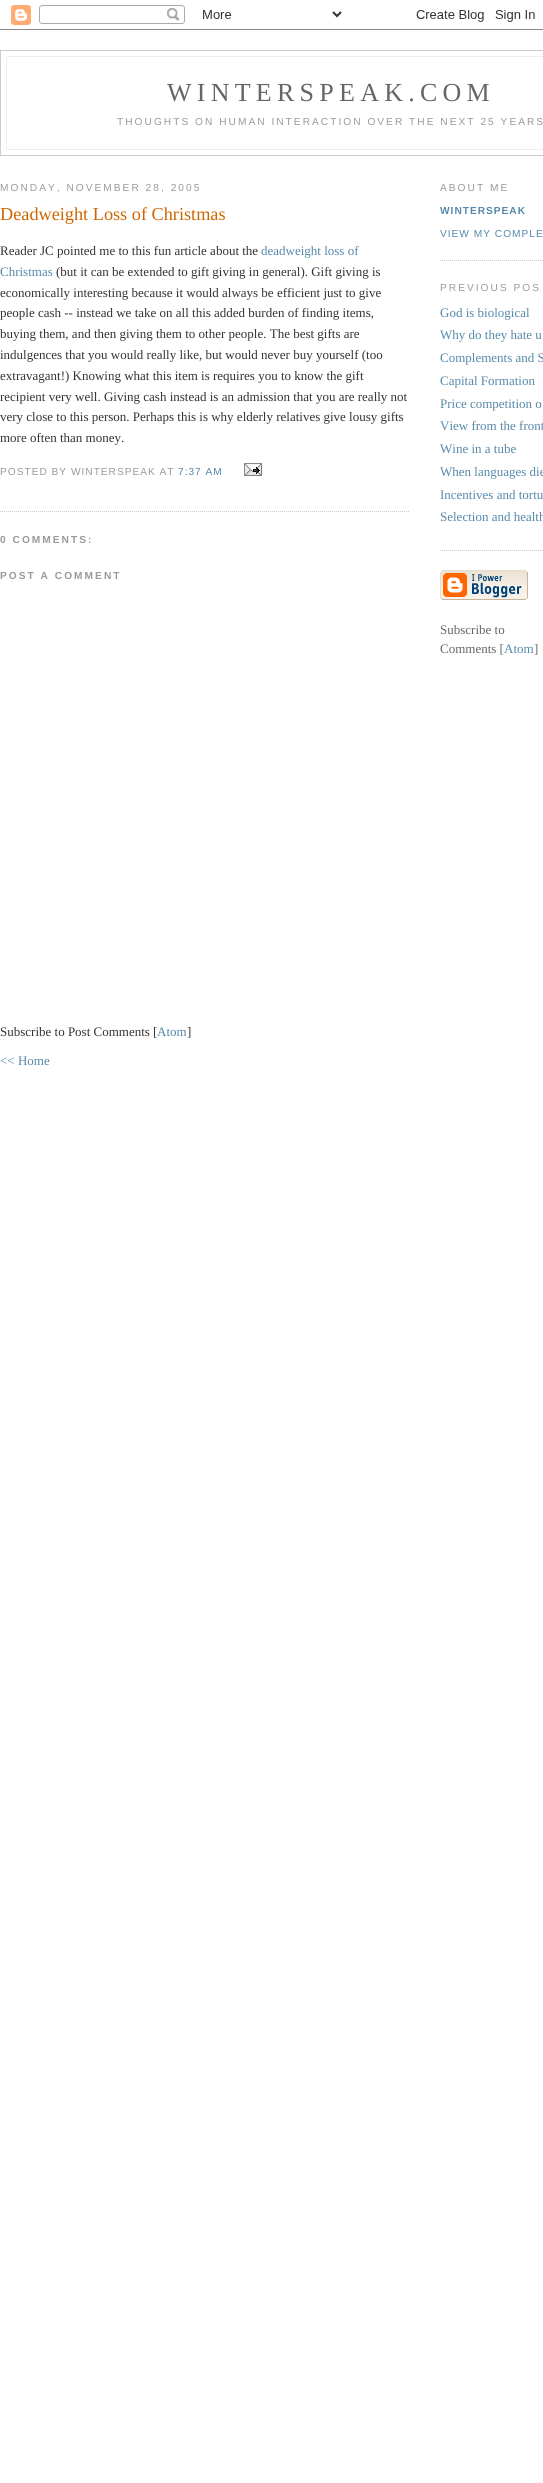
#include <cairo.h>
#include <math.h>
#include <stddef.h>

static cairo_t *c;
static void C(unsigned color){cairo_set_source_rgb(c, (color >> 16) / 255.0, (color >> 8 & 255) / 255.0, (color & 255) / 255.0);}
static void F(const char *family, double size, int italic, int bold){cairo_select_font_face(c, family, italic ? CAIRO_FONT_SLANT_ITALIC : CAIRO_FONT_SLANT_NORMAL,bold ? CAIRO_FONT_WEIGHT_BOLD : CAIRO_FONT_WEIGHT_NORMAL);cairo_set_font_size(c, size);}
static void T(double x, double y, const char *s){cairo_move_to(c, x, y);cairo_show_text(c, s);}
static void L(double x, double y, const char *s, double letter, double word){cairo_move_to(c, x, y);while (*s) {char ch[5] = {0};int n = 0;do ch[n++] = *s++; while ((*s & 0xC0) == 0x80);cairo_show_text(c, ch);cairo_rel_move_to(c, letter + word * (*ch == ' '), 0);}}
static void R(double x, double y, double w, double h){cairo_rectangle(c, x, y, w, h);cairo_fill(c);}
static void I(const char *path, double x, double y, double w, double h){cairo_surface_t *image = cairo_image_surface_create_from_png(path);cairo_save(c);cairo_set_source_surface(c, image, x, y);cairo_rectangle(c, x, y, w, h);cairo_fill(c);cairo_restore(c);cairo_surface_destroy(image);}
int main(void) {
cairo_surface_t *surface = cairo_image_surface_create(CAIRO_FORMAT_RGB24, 543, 2483);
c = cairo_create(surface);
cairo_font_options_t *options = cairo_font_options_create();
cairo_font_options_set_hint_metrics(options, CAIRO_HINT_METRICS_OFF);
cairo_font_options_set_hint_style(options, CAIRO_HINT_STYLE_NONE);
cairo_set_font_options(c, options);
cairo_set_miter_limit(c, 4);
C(0xffffff);
cairo_paint(c);
I("1.png",0,5,543,25);
cairo_rectangle(c,.5,50.5,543,105);
C(0xcccccc);
cairo_set_line_width(c,1);
cairo_stroke(c);
C(0xeeeeee);
R(6,56,537,1);
R(6,56,1,59);
F("Liberation Serif",26,0,0);
C(0x666666);
L(167,101,"WINTERSPEAK.COM",5.25,0);
C(0xeeeeee);
R(6,149,537,1);
R(6,115,1,35);
F("Liberation Sans",10.15,0,0);
C(0x999999);
L(117,125,"THOUGHTS ON HUMAN INTERACTION OVER THE NEXT 25 YEARS",2.03,0);
L(0,191,"MONDAY, NOVEMBER 28, 2005",2.03,0);
cairo_new_path(c);
cairo_move_to(c,0,511.5);
cairo_line_to(c,410,511.5);
C(0xcccccc);
cairo_set_dash(c,(double[]){1,1},2,0);
cairo_stroke(c);
F("Liberation Serif",18.25,0,0);
C(0xcc6600);
T(0,220,"Deadweight Loss of Christmas");
F("Liberation Serif",13,0,0);
C(0x333333);
T(0,255,"Reader JC pointed me to this fun article about the");
C(0x5588aa);
T(261,255,"deadweight loss of");
T(0,276,"Christmas");
C(0x333333);
T(56,276,"(but it can be extended to gift giving in general). Gift giving is");
T(0,297,"economically interesting because it would always be efficient just to give");
T(0,317,"people cash -- instead we take on all this added burden of finding items,");
T(0,338,"buying them, and then giving them to other people. The best gifts are");
T(0,359,"indulgences that you would really like, but would never buy yourself (too");
T(0,380,"extravagant!) Knowing what this item is requires you to know the gift");
T(0,401,"recipient very well. Giving cash instead is an admission that you are really not");
T(0,421,"very close to this person. Perhaps this is why elderly relatives give lousy gifts");
T(0,442,"more often than money.");
F("Liberation Sans",10.15,0,0);
C(0x999999);
L(0,475,"POSTED BY WINTERSPEAK AT",1,0);
C(0x5588aa);
L(178,475,"7:37 AM",1,0);
I("2.png",244,463,18,13);
F("Liberation Sans",10.15,0,1);
C(0x999999);
L(0,543,"0 COMMENTS:",2.03,0);
L(0,579,"POST A COMMENT",2.03,0);
F("Liberation Serif",13,0,0);
C(0x333333);
T(0,1036,"Subscribe to Post Comments [");
C(0x5588aa);
T(157,1036,"Atom");
C(0x333333);
T(187,1036,"]");
C(0x5588aa);
T(0,1065,"<< Home");
cairo_new_path(c);
cairo_move_to(c,440,260.5);
cairo_line_to(c,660,260.5);
C(0xcccccc);
cairo_stroke(c);
F("Liberation Sans",10.15,0,0);
C(0x999999);
L(440,191,"ABOUT ME",2.03,0);
F("Liberation Sans",10.15,0,1);
C(0x5588aa);
L(440,214,"WINTERSPEAK",1,0);
F("Liberation Sans",10.15,0,0);
L(440,237,"VIEW MY COMPLE",1,0);
C(0x999999);
L(440,291,"PREVIOUS POS",2.03,0);
cairo_new_path(c);
cairo_move_to(c,440,550.5);
cairo_line_to(c,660,550.5);
C(0xcccccc);
cairo_stroke(c);
F("Liberation Serif",13,0,0);
C(0x5588aa);
T(440,317,"God is biological");
T(440,339,"Why do they hate u");
T(440,362,"Complements and S");
T(440,385,"Capital Formation");
T(440,408,"Price competition o");
T(440,430,"View from the front");
T(440,453,"Wine in a tube");
T(440,476,"When languages die");
T(440,499,"Incentives and tortu");
T(440,521,"Selection and health");
I("3.png",440,570,88,30);
C(0x666666);
T(440,634,"Subscribe to");
T(440,653,"Comments [");
C(0x5588aa);
T(504,653,"Atom");
C(0x666666);
T(534,653,"]");
cairo_surface_write_to_png(surface, "o.png");
cairo_font_options_destroy(options);
cairo_destroy(c);
cairo_surface_destroy(surface);
return 0;
}
